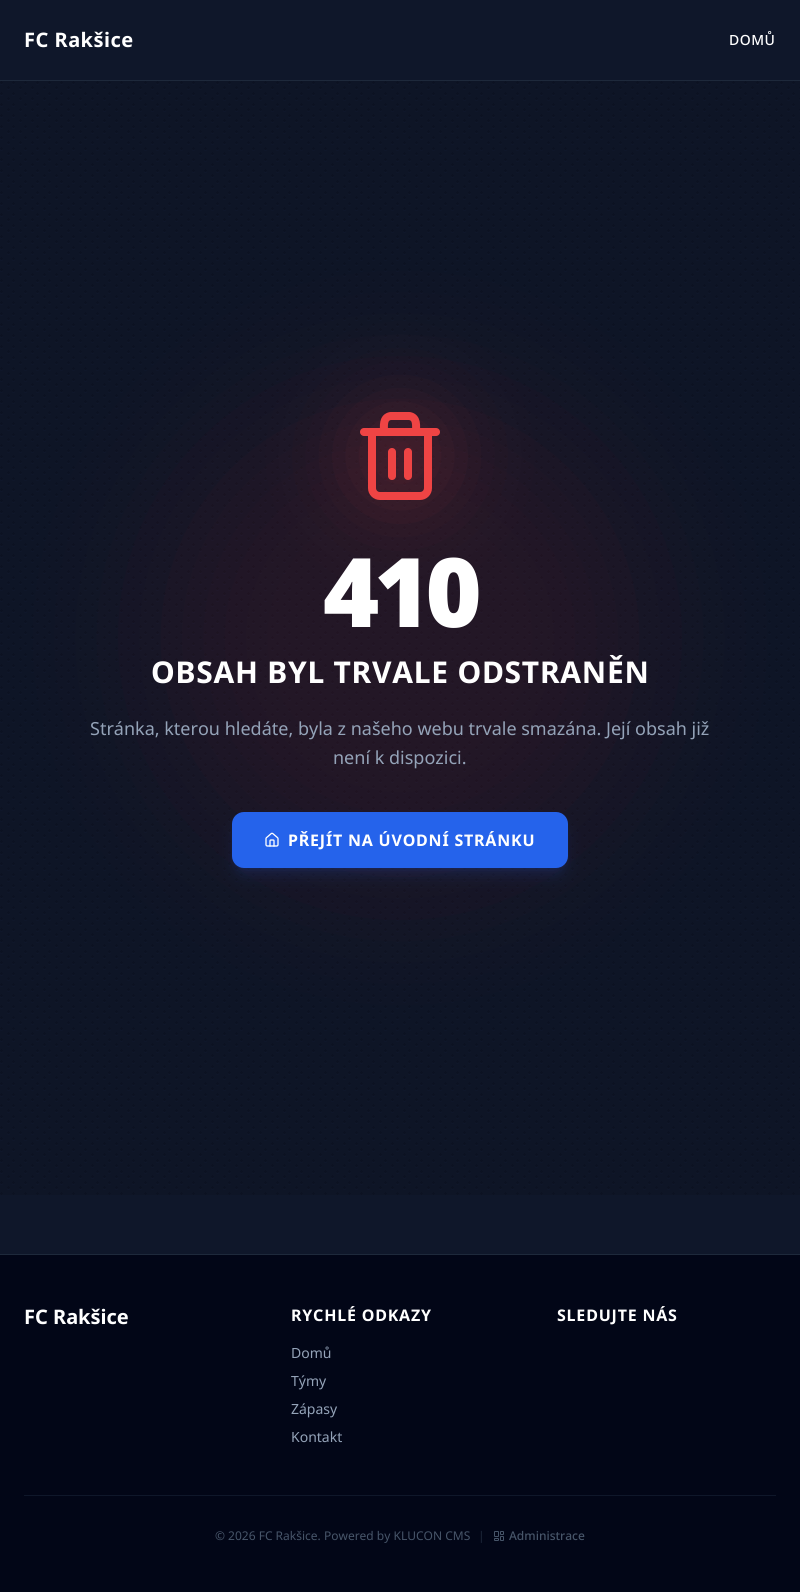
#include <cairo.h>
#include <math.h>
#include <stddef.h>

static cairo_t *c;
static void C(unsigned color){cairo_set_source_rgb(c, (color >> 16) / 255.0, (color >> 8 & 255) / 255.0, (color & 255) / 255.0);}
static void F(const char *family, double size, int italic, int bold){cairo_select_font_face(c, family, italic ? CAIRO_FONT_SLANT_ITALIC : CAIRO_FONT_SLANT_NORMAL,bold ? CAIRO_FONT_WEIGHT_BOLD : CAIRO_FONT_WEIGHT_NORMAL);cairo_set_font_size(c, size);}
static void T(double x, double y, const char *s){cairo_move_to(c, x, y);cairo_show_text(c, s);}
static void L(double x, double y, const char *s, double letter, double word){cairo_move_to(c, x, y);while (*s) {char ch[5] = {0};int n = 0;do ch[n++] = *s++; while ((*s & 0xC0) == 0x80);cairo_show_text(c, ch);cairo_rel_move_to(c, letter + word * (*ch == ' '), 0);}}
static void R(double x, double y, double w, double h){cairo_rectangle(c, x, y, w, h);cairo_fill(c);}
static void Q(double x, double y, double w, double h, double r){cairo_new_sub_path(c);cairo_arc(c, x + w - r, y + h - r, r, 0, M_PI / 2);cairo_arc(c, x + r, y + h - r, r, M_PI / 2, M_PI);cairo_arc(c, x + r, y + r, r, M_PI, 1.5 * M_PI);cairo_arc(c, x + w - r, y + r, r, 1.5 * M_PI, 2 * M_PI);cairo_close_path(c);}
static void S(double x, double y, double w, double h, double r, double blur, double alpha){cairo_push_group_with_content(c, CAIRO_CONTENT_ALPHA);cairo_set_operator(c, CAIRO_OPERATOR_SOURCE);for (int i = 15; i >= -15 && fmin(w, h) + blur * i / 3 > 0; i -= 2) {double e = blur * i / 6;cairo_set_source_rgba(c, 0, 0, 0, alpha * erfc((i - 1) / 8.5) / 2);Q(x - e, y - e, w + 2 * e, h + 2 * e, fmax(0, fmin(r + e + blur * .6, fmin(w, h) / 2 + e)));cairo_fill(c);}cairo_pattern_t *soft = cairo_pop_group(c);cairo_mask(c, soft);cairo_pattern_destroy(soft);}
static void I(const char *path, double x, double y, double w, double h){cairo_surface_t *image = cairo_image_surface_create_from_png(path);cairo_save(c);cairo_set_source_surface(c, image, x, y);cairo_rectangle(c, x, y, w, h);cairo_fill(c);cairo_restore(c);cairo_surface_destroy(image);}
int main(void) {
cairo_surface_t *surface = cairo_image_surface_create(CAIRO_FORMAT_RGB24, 800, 1592);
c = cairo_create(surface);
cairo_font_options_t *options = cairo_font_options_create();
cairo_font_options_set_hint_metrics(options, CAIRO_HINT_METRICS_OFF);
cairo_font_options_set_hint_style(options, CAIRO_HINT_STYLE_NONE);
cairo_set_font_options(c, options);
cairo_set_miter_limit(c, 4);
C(0x0f172a);
cairo_paint(c);
C(0x1e293b);
R(0,80,800,1);
F("Noto Sans",20,0,1);
C(0xffffff);
L(24,47,"FC Rakšice",.5,0);
F("Noto Sans Medium",14,0,0);
L(729,45,"DOMŮ",.5,0);
I("1.png",0,81,800,1114);
C(0xdc2626);
S(150,388,500,500,250,64,.1);
C(0xef4444);
S(352,408,96,96,48,40,.2);
cairo_new_path(c);
cairo_move_to(c,392,452);
cairo_line_to(c,392,476);
cairo_move_to(c,408,452);
cairo_line_to(c,408,476);
C(0xef4444);
cairo_set_line_width(c,8);
cairo_set_line_cap(c,CAIRO_LINE_CAP_ROUND);
cairo_set_line_join(c,CAIRO_LINE_JOIN_ROUND);
cairo_stroke(c);
cairo_new_path(c);
cairo_move_to(c,428,432);
cairo_line_to(c,428,488);
cairo_curve_to(c,428,492.5,424.5,496,420,496);
cairo_line_to(c,380,496);
cairo_curve_to(c,375.5,496,372,492.5,372,488);
cairo_line_to(c,372,432);
cairo_stroke(c);
cairo_new_path(c);
cairo_move_to(c,364,432);
cairo_line_to(c,436,432);
cairo_stroke(c);
cairo_new_path(c);
cairo_move_to(c,384,432);
cairo_curve_to(c,384,426,382.5,417.5,390.5,416);
cairo_line_to(c,409.5,416);
cairo_curve_to(c,417.5,417.5,416,426,416,432);
cairo_stroke(c);
F("Noto Sans Black",96,0,0);
C(0xffffff);
L(323,627,"410",-5,0);
F("Noto Sans",30,0,1);
L(151,683,"OBSAH BYL TRVALE ODSTRANĚN",.75,0);
F("Noto Sans",18,0,0);
C(0x94a3b8);
T(90,735,"Stránka, kterou hledáte, byla z našeho webu trvale smazána. Její obsah již");
T(333,764,"není k dispozici.");
C(0x1e3a8a);
S(236,820,328,48,8,3,.3);
S(235,825,330,50,9,7.5,.3);
C(0x2563eb);
Q(232,812,336,56,12);
cairo_fill(c);
I("2.png",265,832,14,15);
F("Noto Sans",16,0,1);
C(0xffffff);
L(288,846,"PŘEJÍT NA ÚVODNÍ STRÁNKU",.8,0);
C(0x020617);
R(0,1255,800,337);
C(0x1e293b);
R(0,1254,800,1);
F("Noto Sans",20,0,1);
C(0xffffff);
T(24,1324,"FC Rakšice");
F("Noto Sans",16,0,1);
L(291,1321,"RYCHLÉ ODKAZY",.8,0);
F("Noto Sans",14,0,0);
C(0x94a3b8);
T(291,1358,"Domů");
T(291,1386,"Týmy");
T(291,1414,"Zápasy");
T(291,1442,"Kontakt");
F("Noto Sans",16,0,1);
C(0xffffff);
L(557,1321,"SLEDUJTE NÁS",.8,0);
C(0x0f172a);
R(24,1495,752,1);
F("Noto Sans",12,0,0);
C(0x475569);
T(215,1540,"© 2026 FC Rakšice. Powered by KLUCON CMS");
C(0x1e293b);
T(478,1540,"|");
I("3.png",494,1531,10,10);
F("Noto Sans Medium",12,0,0);
C(0x475569);
T(509,1540,"Administrace");
cairo_surface_write_to_png(surface, "o.png");
cairo_font_options_destroy(options);
cairo_destroy(c);
cairo_surface_destroy(surface);
return 0;
}
